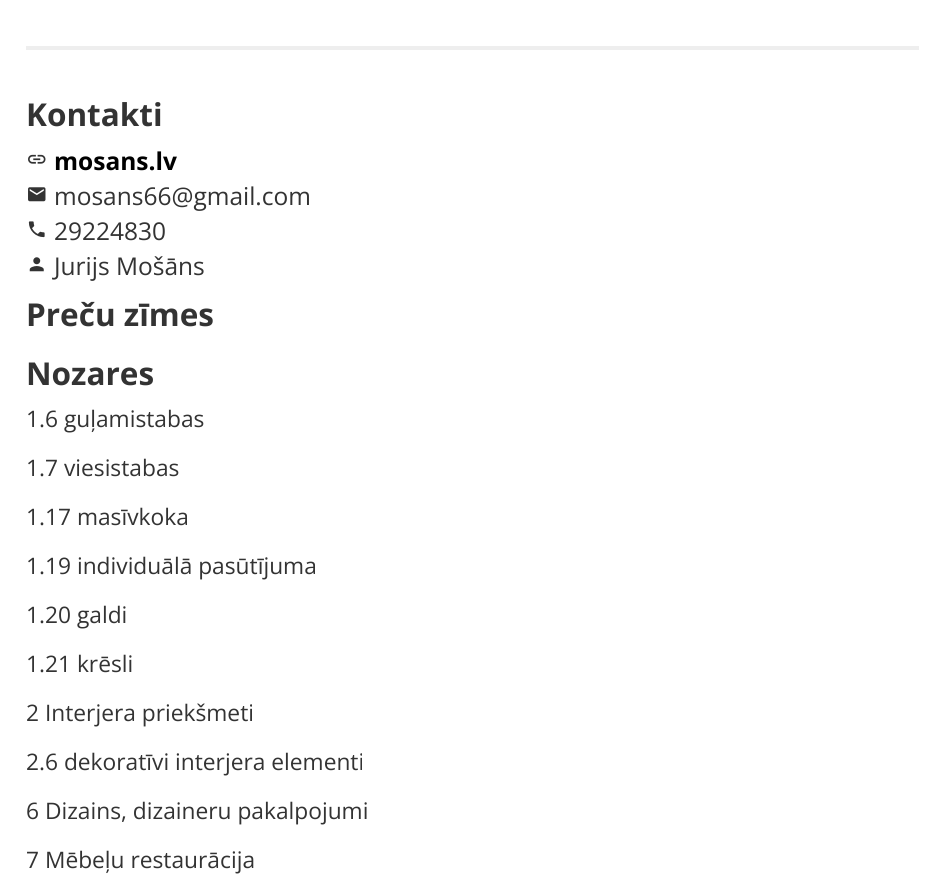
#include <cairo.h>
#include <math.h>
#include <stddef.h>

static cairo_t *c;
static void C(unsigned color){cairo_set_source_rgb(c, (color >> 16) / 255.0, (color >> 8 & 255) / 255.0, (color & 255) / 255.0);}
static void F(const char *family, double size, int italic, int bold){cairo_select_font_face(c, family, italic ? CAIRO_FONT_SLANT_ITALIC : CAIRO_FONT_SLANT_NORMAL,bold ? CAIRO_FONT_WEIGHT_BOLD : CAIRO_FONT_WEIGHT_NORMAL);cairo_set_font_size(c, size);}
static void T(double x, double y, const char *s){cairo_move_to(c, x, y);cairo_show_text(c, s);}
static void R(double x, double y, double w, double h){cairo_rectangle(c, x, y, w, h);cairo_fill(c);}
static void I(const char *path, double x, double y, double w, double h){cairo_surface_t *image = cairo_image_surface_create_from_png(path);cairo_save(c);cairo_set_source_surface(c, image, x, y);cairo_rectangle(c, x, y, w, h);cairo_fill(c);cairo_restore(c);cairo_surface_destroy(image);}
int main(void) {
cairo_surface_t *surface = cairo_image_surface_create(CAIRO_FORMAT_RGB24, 945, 887);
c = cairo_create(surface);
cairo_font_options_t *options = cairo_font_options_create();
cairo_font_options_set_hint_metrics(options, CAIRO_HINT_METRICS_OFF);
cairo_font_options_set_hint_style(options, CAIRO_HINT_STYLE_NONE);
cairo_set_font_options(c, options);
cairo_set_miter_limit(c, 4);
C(0xffffff);
cairo_paint(c);
C(0xeeeeee);
R(26,46,893,4);
F("Open Sans",31.5,0,1);
C(0x333333);
T(26,126,"Kontakti");
I("1.png",28,154,18,10);
F("Open Sans",24.5,0,1);
C(0x000000);
T(54,170,"mosans.lv");
I("2.png",28,187,18,15);
F("Open Sans",24.5,0,0);
C(0x333333);
T(54,205,"mosans66@gmail.com");
I("3.png",28,221,17,17);
T(54,240,"29224830");
I("4.png",29,257,15,15);
T(54,275,"Jurijs Mošāns");
F("Open Sans",31.5,0,1);
T(26,326,"Preču zīmes");
T(26,385,"Nozares");
F("Open Sans",22.75,0,0);
T(26,427,"1.6 guļamistabas");
T(26,476,"1.7 viesistabas");
T(26,525,"1.17 masīvkoka");
T(26,574,"1.19 individuālā pasūtījuma");
T(26,623,"1.20 galdi");
T(26,672,"1.21 krēsli");
T(26,721,"2 Interjera priekšmeti");
T(26,770,"2.6 dekoratīvi interjera elementi");
T(26,819,"6 Dizains, dizaineru pakalpojumi");
T(26,868,"7 Mēbeļu restaurācija");
cairo_surface_write_to_png(surface, "o.png");
cairo_font_options_destroy(options);
cairo_destroy(c);
cairo_surface_destroy(surface);
return 0;
}
